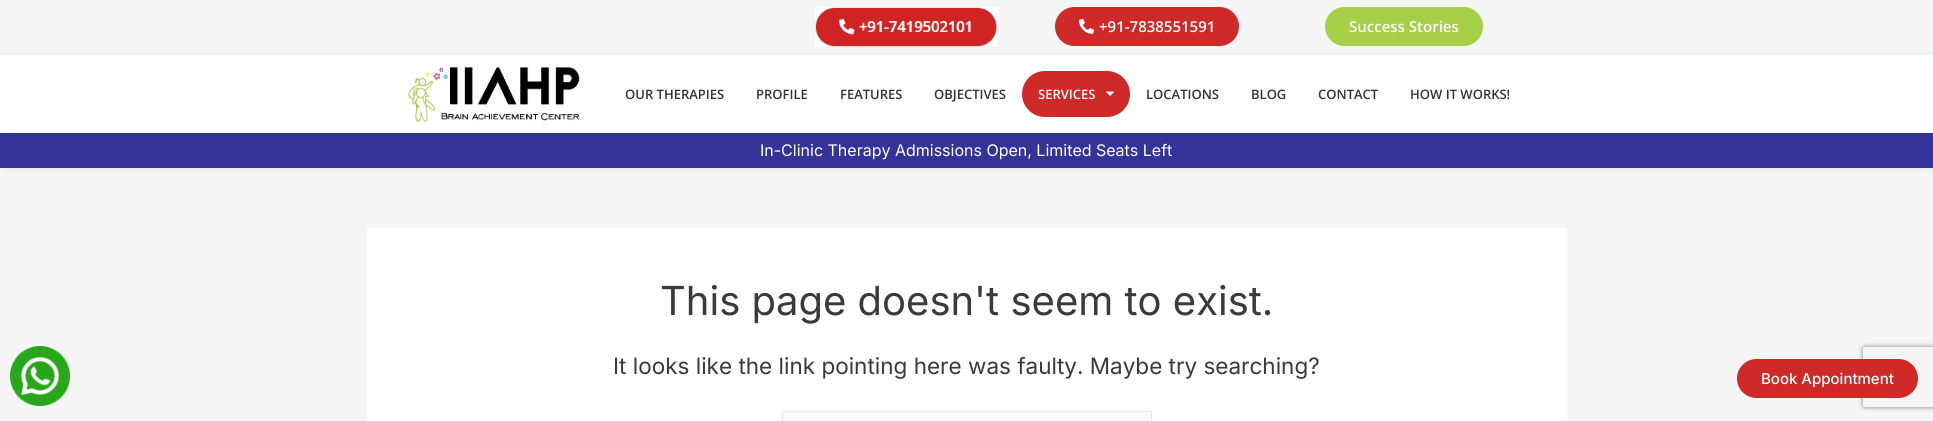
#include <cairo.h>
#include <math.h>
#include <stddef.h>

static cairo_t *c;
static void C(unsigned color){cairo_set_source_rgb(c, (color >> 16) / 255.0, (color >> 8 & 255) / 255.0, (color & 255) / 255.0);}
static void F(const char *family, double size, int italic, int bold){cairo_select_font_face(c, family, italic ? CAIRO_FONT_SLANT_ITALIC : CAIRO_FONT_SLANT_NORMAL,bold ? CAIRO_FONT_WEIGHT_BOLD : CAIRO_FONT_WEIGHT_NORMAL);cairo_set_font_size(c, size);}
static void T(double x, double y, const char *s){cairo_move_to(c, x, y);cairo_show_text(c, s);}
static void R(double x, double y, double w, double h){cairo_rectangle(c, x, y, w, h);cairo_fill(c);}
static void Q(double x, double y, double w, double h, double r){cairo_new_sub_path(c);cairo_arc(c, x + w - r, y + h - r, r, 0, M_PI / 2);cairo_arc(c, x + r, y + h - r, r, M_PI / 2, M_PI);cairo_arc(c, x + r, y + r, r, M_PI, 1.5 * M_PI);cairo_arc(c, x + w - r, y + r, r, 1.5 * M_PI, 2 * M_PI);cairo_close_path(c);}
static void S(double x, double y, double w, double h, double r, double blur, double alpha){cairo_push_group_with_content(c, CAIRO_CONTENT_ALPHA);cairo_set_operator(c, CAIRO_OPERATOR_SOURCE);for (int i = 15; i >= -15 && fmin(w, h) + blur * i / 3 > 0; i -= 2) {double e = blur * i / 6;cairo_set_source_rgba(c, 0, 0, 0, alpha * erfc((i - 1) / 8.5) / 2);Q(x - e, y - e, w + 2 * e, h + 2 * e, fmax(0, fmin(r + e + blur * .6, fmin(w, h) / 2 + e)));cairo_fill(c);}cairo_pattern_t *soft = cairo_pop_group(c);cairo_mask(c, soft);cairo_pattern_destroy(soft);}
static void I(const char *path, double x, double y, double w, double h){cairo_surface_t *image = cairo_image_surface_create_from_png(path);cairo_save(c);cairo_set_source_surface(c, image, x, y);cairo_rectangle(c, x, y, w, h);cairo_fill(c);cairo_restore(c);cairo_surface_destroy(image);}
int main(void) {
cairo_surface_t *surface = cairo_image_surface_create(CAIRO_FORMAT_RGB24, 1933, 421);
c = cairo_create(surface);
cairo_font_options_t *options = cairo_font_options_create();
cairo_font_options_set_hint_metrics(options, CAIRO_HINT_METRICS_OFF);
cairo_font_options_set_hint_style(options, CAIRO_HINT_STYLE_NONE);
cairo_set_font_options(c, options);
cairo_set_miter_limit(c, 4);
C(0xf5f5f5);
cairo_paint(c);
I("1.png",815,7,183,40);
C(0xcf2928);
Q(1055,7,184,39,19.5);
cairo_fill(c);
I("2.png",1079,18,15,16);
F("Open Sans SemiBold",15,0,0);
C(0xffffff);
T(1099,32,"+91-7838551591");
C(0xa6cf48);
Q(1325,7,158,39,19.5);
cairo_fill(c);
C(0xffffff);
T(1349,32,"Success Stories");
C(0x000000);
S(5,140,1923,25,0,5,.15);
C(0x333399);
R(0,133,1933,35);
C(0x000000);
S(5,60,1923,70,0,5,.15);
C(0xffffff);
R(0,54,1933,79);
C(0xe2e8f0);
R(0,53,1933,1);
I("3.png",407,67,173,56);
F("Open Sans SemiBold",13,0,0);
C(0x333333);
T(625,99,"OUR THERAPIES");
T(756,99,"PROFILE");
T(840,99,"FEATURES");
T(934,99,"OBJECTIVES");
C(0xcf2928);
Q(1022,71,108,46,23);
cairo_fill(c);
C(0xffffff);
T(1038,99,"SERVICES");
I("4.png",1106,91,8,5);
C(0x333333);
T(1146,99,"LOCATIONS");
T(1251,99,"BLOG");
T(1318,99,"CONTACT");
T(1410,99,"HOW IT WORKS!");
F("Inter",16,0,0);
C(0xffffff);
T(760,156,"In-Clinic Therapy Admissions Open, Limited Seats Left");
R(367,228,1200,193);
F("Inter",40,0,0);
C(0x3a3a3a);
T(660,315,"This page doesn't seem to exist.");
F("Inter",22.5,0,0);
T(613,374,"It looks like the link pointing here was faulty. Maybe try searching?");
C(0xfafafa);
Q(782.5,411.5,369,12,1.5);
cairo_fill_preserve(c);
C(0xe5e5e5);
cairo_set_line_width(c,1);
cairo_stroke(c);
cairo_save(c);
cairo_set_fill_rule(c,CAIRO_FILL_RULE_EVEN_ODD);
cairo_new_path(c);
cairo_move_to(c,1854,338);
cairo_line_to(c,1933,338);
cairo_line_to(c,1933,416);
cairo_line_to(c,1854,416);
cairo_close_path(c);
cairo_move_to(c,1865,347);
cairo_line_to(c,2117,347);
cairo_curve_to(c,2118,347,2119,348,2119,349);
cairo_line_to(c,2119,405);
cairo_curve_to(c,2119,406,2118,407,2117,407);
cairo_line_to(c,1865,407);
cairo_curve_to(c,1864,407,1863,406,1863,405);
cairo_line_to(c,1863,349);
cairo_curve_to(c,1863,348,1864,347,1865,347);
cairo_close_path(c);
cairo_clip(c);
C(0x808080);
S(1863,347,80,60,2,2.5,1);
cairo_restore(c);
C(0xcf2928);
Q(1737,359,181,39,19.5);
cairo_fill(c);
F("Inter Medium",15,0,0);
C(0xffffff);
T(1761,384,"Book Appointment");
I("5.png",10,346,60,60);
cairo_surface_write_to_png(surface, "o.png");
cairo_font_options_destroy(options);
cairo_destroy(c);
cairo_surface_destroy(surface);
return 0;
}
